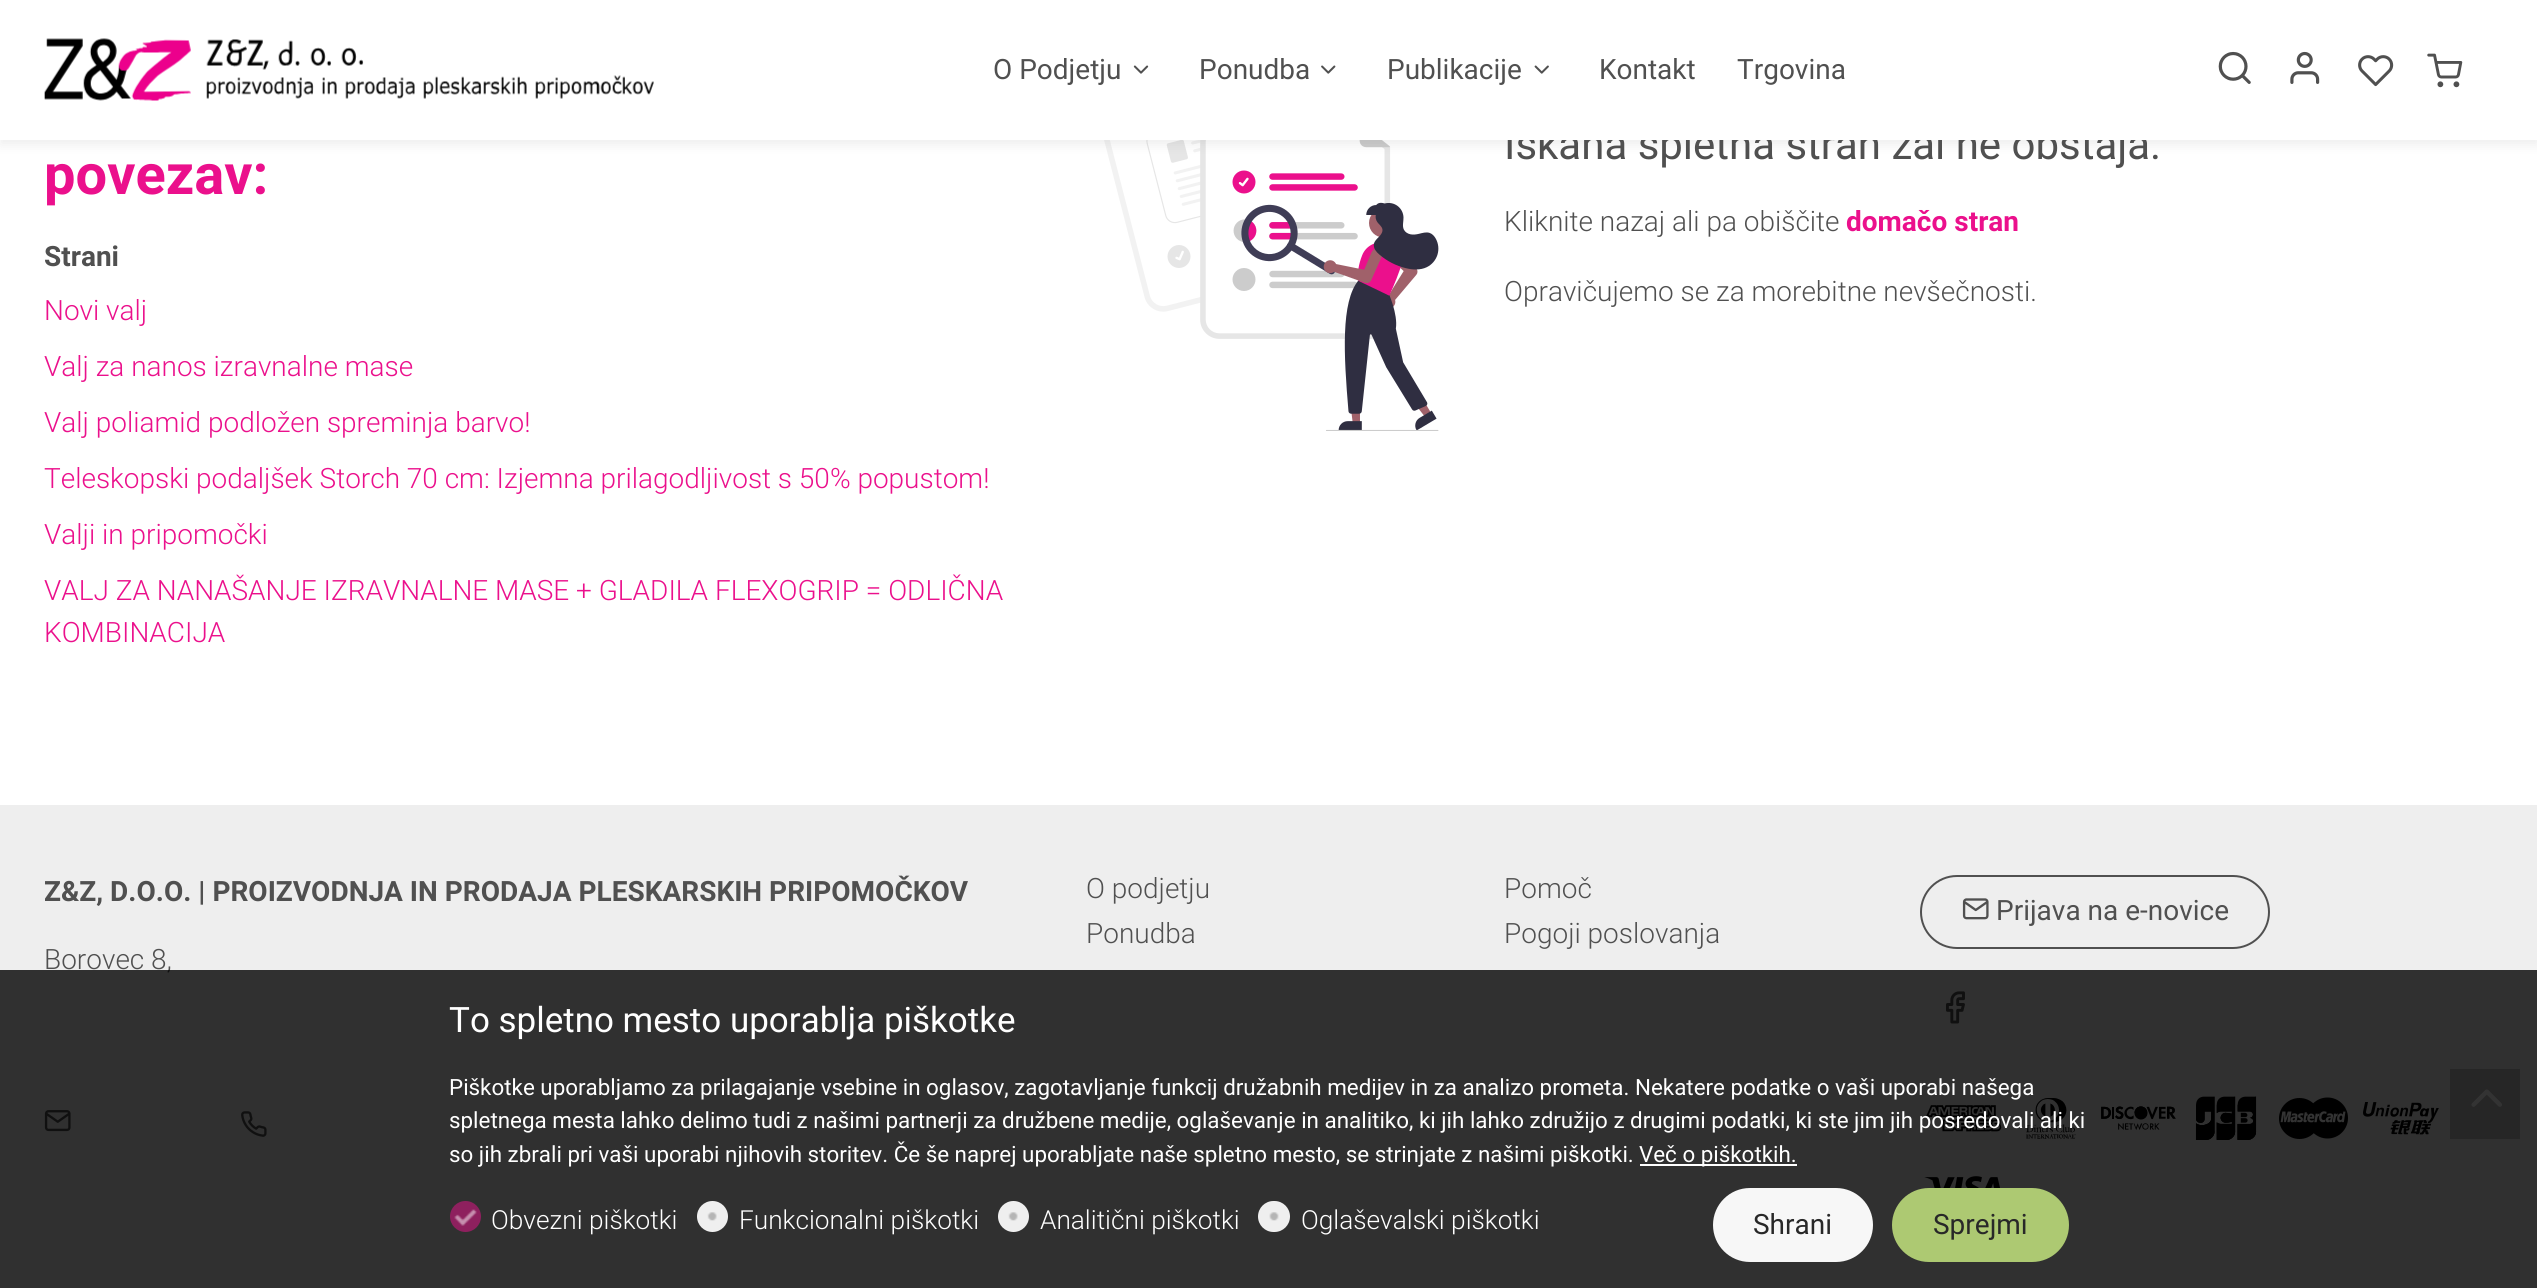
#include <cairo.h>
#include <math.h>
#include <stddef.h>

static cairo_t *c;
static void C(unsigned color){cairo_set_source_rgb(c, (color >> 16) / 255.0, (color >> 8 & 255) / 255.0, (color & 255) / 255.0);}
static void F(const char *family, double size, int italic, int bold){cairo_select_font_face(c, family, italic ? CAIRO_FONT_SLANT_ITALIC : CAIRO_FONT_SLANT_NORMAL,bold ? CAIRO_FONT_WEIGHT_BOLD : CAIRO_FONT_WEIGHT_NORMAL);cairo_set_font_size(c, size);}
static void T(double x, double y, const char *s){cairo_move_to(c, x, y);cairo_show_text(c, s);}
static void R(double x, double y, double w, double h){cairo_rectangle(c, x, y, w, h);cairo_fill(c);}
static void Q(double x, double y, double w, double h, double r){cairo_new_sub_path(c);cairo_arc(c, x + w - r, y + h - r, r, 0, M_PI / 2);cairo_arc(c, x + r, y + h - r, r, M_PI / 2, M_PI);cairo_arc(c, x + r, y + r, r, M_PI, 1.5 * M_PI);cairo_arc(c, x + w - r, y + r, r, 1.5 * M_PI, 2 * M_PI);cairo_close_path(c);}
static void S(double x, double y, double w, double h, double r, double blur, double alpha){cairo_push_group_with_content(c, CAIRO_CONTENT_ALPHA);cairo_set_operator(c, CAIRO_OPERATOR_SOURCE);for (int i = 15; i >= -15 && fmin(w, h) + blur * i / 3 > 0; i -= 2) {double e = blur * i / 6;cairo_set_source_rgba(c, 0, 0, 0, alpha * erfc((i - 1) / 8.5) / 2);Q(x - e, y - e, w + 2 * e, h + 2 * e, fmax(0, fmin(r + e + blur * .6, fmin(w, h) / 2 + e)));cairo_fill(c);}cairo_pattern_t *soft = cairo_pop_group(c);cairo_mask(c, soft);cairo_pattern_destroy(soft);}
static void I(const char *path, double x, double y, double w, double h){cairo_surface_t *image = cairo_image_surface_create_from_png(path);cairo_save(c);cairo_set_source_surface(c, image, x, y);cairo_rectangle(c, x, y, w, h);cairo_fill(c);cairo_restore(c);cairo_surface_destroy(image);}
int main(void) {
cairo_surface_t *surface = cairo_image_surface_create(CAIRO_FORMAT_RGB24, 2537, 1288);
c = cairo_create(surface);
cairo_font_options_t *options = cairo_font_options_create();
cairo_font_options_set_hint_metrics(options, CAIRO_HINT_METRICS_OFF);
cairo_font_options_set_hint_style(options, CAIRO_HINT_STYLE_NONE);
cairo_set_font_options(c, options);
cairo_set_miter_limit(c, 4);
C(0xffffff);
cairo_paint(c);
I("9.png",1104,140,335,291);
C(0x000000);
S(0,5,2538,140,0,6,.07);
F("Roboto",42,0,0);
C(0x505050);
T(1504,159,"Iskana spletna stran žal ne obstaja.");
C(0xffffff);
R(0,0,2537,140);
I("1.png",44,38,610,63);
F("Roboto",28,0,0);
C(0x505050);
T(993,79,"O Podjetju");
I("2.png",1133,65,16,9);
T(1199,79,"Ponudba");
I("3.png",1321,65,15,9);
T(1387,79,"Publikacije");
I("4.png",1534,65,15,9);
T(1599,79,"Kontakt");
T(1737,79,"Trgovina");
I("5.png",2218,51,33,33);
I("6.png",2290,51,30,33);
I("7.png",2358,55,36,32);
I("8.png",2427,53,36,35);
F("Roboto",56,0,1);
C(0xeb108c);
T(44,194,"povezav:");
F("Roboto",28,0,1);
C(0x505050);
T(44,266,"Strani");
F("Roboto Light",28,0,0);
C(0xeb108c);
T(44,320,"Novi valj");
T(44,376,"Valj za nanos izravnalne mase");
T(44,432,"Valj poliamid podložen spreminja barvo!");
T(44,488,"Teleskopski podaljšek Storch 70 cm: Izjemna prilagodljivost s 50% popustom!");
T(44,544,"Valji in pripomočki");
T(44,600,"VALJ ZA NANAŠANJE IZRAVNALNE MASE + GLADILA FLEXOGRIP = ODLIČNA");
T(44,642,"KOMBINACIJA");
C(0x505050);
T(1504,231,"Kliknite nazaj ali pa obiščite");
F("Roboto",28,0,1);
C(0xeb108c);
T(1846,231,"domačo stran");
F("Roboto Light",28,0,0);
C(0x505050);
T(1504,301,"Opravičujemo se za morebitne nevšečnosti.");
C(0xeeeeee);
R(0,805,2537,483);
F("Roboto",28,0,1);
C(0x505050);
T(44,901,"Z&Z, D.O.O. | PROIZVODNJA IN PRODAJA PLESKARSKIH PRIPOMOČKOV");
F("Roboto Light",28,0,0);
T(44,969,"Borovec 8,");
I("10.png",44,1110,27,22);
I("11.png",241,1111,26,26);
T(1086,898,"O podjetju");
T(1086,943,"Ponudba");
T(1504,898,"Pomoč");
T(1504,943,"Pogoji poslovanja");
Q(1921,876,348,72,36);
cairo_stroke(c);
I("12.png",1962,898,27,22);
F("Roboto",28,0,0);
T(1996,920,"Prijava na e-novice");
I("13.png",1946,991,19,33);
I("14.png",1925,1105,77,27);
I("15.png",2026,1098,50,41);
I("16.png",2101,1106,75,24);
I("17.png",2195,1096,62,44);
I("18.png",2279,1097,69,42);
I("19.png",2363,1102,76,33);
I("20.png",1924,1176,76,12);
C(0xbcbcbc);
R(2450,1069,70,70);
I("24.png",2471,1089,31,18);
cairo_set_source_rgba(c,0,0,0,0.8);
R(0,970,2537,318);
F("Roboto",35,0,0);
C(0xffffff);
T(449,1032,"To spletno mesto uporablja piškotke");
F("Roboto",22.4,0,0);
T(449,1095,"Piškotke uporabljamo za prilagajanje vsebine in oglasov, zagotavljanje funkcij družabnih medijev in za analizo prometa. Nekatere podatke o vaši uporabi našega");
T(449,1128,"spletnega mesta lahko delimo tudi z našimi partnerji za družbene medije, oglaševanje in analitiko, ki jih lahko združijo z drugimi podatki, ki ste jim jih posredovali ali ki");
T(449,1162,"so jih zbrali pri vaši uporabi njihovih storitev. Če še naprej uporabljate naše spletno mesto, se strinjate z našimi piškotki.");
R(1640,1164,157,2);
T(1639,1162,"Več o piškotkih.");
cairo_set_source_rgba(c,0.922,0.063,0.549,0.5);
cairo_new_path(c);
cairo_arc(c,465.5,1216.5,15.5,0,2 * M_PI);
cairo_fill(c);
I("21.png",454,1209,23,17);
F("Roboto Light",26.25,0,0);
C(0xffffff);
T(491,1229,"Obvezni piškotki");
C(0xefefef);
cairo_new_path(c);
cairo_arc(c,712.5,1216.5,15.5,0,2 * M_PI);
cairo_fill(c);
I("22.png",707,1212,10,9);
C(0xffffff);
T(739,1229,"Funkcionalni piškotki");
C(0xefefef);
cairo_new_path(c);
cairo_arc(c,1013.5,1216.5,15.5,0,2 * M_PI);
cairo_fill(c);
I("22.png",1008,1212,10,9);
C(0xffffff);
T(1040,1229,"Analitični piškotki");
C(0xefefef);
Q(1258,1201,32,31,15.5);
cairo_fill(c);
I("23.png",1269,1212,10,9);
C(0xffffff);
T(1301,1229,"Oglaševalski piškotki");
C(0xf7f7f7);
Q(1714,1189,158,72,36);
cairo_fill_preserve(c);
cairo_stroke(c);
F("Roboto",28,0,0);
C(0x282828);
T(1753,1234,"Shrani");
C(0xadc972);
Q(1893,1189,175,72,36);
cairo_fill_preserve(c);
cairo_stroke(c);
C(0x282828);
T(1933,1234,"Sprejmi");
cairo_surface_write_to_png(surface, "o.png");
cairo_font_options_destroy(options);
cairo_destroy(c);
cairo_surface_destroy(surface);
return 0;
}
